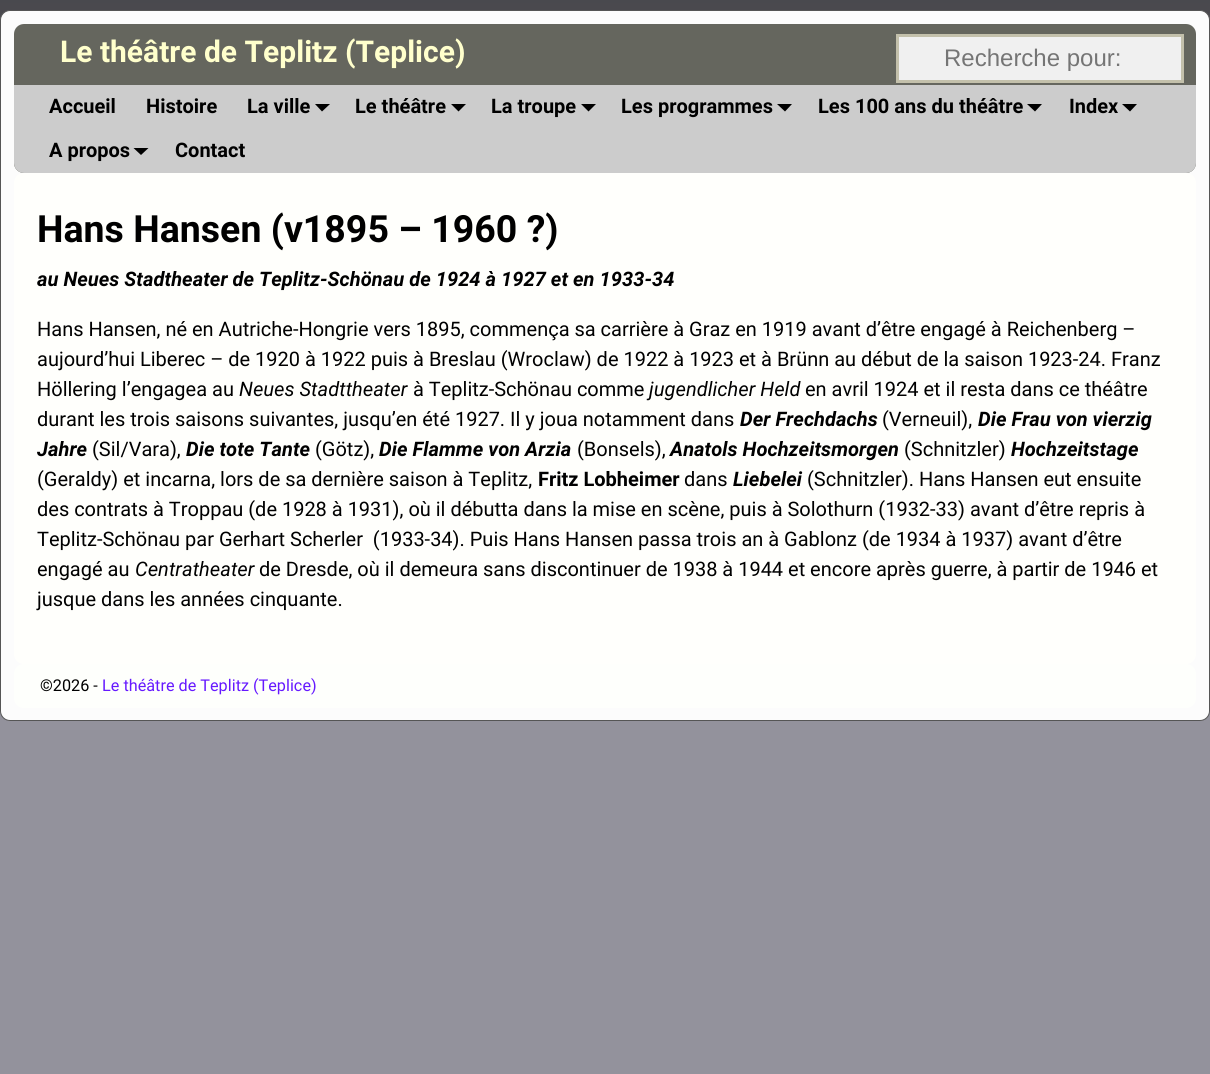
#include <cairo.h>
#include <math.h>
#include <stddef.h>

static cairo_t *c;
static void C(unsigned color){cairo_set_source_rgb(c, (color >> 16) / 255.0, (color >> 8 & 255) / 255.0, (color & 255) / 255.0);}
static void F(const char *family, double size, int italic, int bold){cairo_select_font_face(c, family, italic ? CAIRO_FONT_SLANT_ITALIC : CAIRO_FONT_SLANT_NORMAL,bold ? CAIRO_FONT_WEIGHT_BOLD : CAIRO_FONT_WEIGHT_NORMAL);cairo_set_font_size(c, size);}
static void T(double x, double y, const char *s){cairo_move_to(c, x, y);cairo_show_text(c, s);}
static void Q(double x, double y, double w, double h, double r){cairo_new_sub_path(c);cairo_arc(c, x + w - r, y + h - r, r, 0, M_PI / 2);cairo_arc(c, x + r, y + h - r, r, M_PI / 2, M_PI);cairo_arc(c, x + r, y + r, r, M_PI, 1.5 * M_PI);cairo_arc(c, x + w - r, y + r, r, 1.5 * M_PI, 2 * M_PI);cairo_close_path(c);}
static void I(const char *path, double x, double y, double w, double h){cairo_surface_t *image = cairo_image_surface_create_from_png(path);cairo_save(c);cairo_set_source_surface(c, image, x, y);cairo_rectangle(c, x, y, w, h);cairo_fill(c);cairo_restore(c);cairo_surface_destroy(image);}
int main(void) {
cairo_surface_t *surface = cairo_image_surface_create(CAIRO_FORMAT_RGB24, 1210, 1074);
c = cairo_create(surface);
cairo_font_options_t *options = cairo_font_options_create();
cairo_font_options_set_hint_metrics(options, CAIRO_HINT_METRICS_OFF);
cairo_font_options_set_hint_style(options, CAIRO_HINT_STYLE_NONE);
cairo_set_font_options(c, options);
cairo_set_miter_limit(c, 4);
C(0x93929c);
cairo_paint(c);
I("1.png",0,0,1210,20);
C(0xfcfcfc);
Q(.5,10.5,1209,710,9.5);
cairo_fill_preserve(c);
C(0x555555);
cairo_set_line_width(c,1);
cairo_stroke(c);
C(0x65665e);
Q(14,24,1182,149,10);
cairo_fill(c);
F("Roboto",30,0,1);
C(0xffffcc);
T(60,62,"Le théâtre de Teplitz (Teplice)");
C(0xf0f0f0);
cairo_rectangle(c,897.5,35.5,285,46);
cairo_fill_preserve(c);
C(0xc3c0ab);
cairo_set_line_width(c,3);
cairo_stroke(c);
F("Liberation Sans",24,0,0);
C(0x757575);
T(944,66,"Recherche pour:");
C(0xcccccc);
cairo_new_path(c);
cairo_move_to(c,14,85);
cairo_line_to(c,1196,85);
cairo_line_to(c,1196,163);
cairo_curve_to(c,1196,168.5,1191.5,173,1186,173);
cairo_line_to(c,24,173);
cairo_curve_to(c,18.5,173,14,168.5,14,163);
cairo_close_path(c);
cairo_fill(c);
F("Roboto",20,0,1);
C(0x000000);
T(49,113,"Accueil");
T(146,113,"Histoire");
T(247,113,"La ville");
cairo_new_path(c);
cairo_move_to(c,315,104);
cairo_line_to(c,330,104);
cairo_line_to(c,322,111.5);
cairo_close_path(c);
cairo_fill(c);
T(355,113,"Le théâtre");
cairo_new_path(c);
cairo_move_to(c,451,104);
cairo_line_to(c,466,104);
cairo_line_to(c,458.5,111.5);
cairo_close_path(c);
cairo_fill(c);
T(491,113,"La troupe");
cairo_new_path(c);
cairo_move_to(c,581,104);
cairo_line_to(c,596,104);
cairo_line_to(c,588.5,111.5);
cairo_close_path(c);
cairo_fill(c);
T(621,113,"Les programmes");
cairo_new_path(c);
cairo_move_to(c,777,104);
cairo_line_to(c,792,104);
cairo_line_to(c,785,111.5);
cairo_close_path(c);
cairo_fill(c);
T(818,113,"Les 100 ans du théâtre");
cairo_new_path(c);
cairo_move_to(c,1027,104);
cairo_line_to(c,1042,104);
cairo_line_to(c,1035,111.5);
cairo_close_path(c);
cairo_fill(c);
T(1069,113,"Index");
cairo_new_path(c);
cairo_move_to(c,1122,104);
cairo_line_to(c,1137,104);
cairo_line_to(c,1130,111.5);
cairo_close_path(c);
cairo_fill(c);
T(49,157,"A propos");
cairo_new_path(c);
cairo_move_to(c,133.5,148);
cairo_line_to(c,148.5,148);
cairo_line_to(c,141,155);
cairo_close_path(c);
cairo_fill(c);
T(175,157,"Contact");
C(0xfffffc);
Q(14,173,1182,491,10);
cairo_fill(c);
F("Roboto",37.5,0,1);
C(0x000000);
T(37,242,"Hans Hansen (v1895 – 1960 ?)");
F("Roboto",20,1,1);
T(37,286,"au Neues Stadtheater de Teplitz-Schönau de 1924 à 1927 et en 1933-34");
F("Roboto",20,0,0);
T(37,336,"Hans Hansen, né en Autriche-Hongrie vers 1895, commença sa carrière à Graz en 1919 avant d’être engagé à Reichenberg –");
T(37,366,"aujourd’hui Liberec – de 1920 à 1922 puis à Breslau (Wroclaw) de 1922 à 1923 et à Brünn au début de la saison 1923-24. Franz");
T(37,396,"Höllering l’engagea au");
F("Roboto",20,1,0);
T(239,396,"Neues Stadttheater");
F("Roboto",20,0,0);
T(413,396,"à Teplitz-Schönau comme");
F("Roboto",20,1,0);
T(649,396,"jugendlicher Held");
F("Roboto",20,0,0);
T(805,396,"en avril 1924 et il resta dans ce théâtre");
T(37,426,"durant les trois saisons suivantes, jusqu’en été 1927. Il y joua notamment dans");
F("Roboto",20,1,1);
T(740,426,"Der Frechdachs");
F("Roboto",20,0,0);
T(882,426,"(Verneuil),");
F("Roboto",20,1,1);
T(978,426,"Die Frau von vierzig");
T(37,456,"Jahre");
F("Roboto",20,0,0);
T(92,456,"(Sil/Vara),");
F("Roboto",20,1,1);
T(186,456,"Die tote Tante");
F("Roboto",20,0,0);
T(315,456,"(Götz),");
F("Roboto",20,1,1);
T(379,456,"Die Flamme von Arzia");
F("Roboto",20,0,0);
T(577,456,"(Bonsels),");
F("Roboto",20,1,1);
T(670,456,"Anatols Hochzeitsmorgen");
F("Roboto",20,0,0);
T(904,456,"(Schnitzler)");
F("Roboto",20,1,1);
T(1011,456,"Hochzeitstage");
F("Roboto",20,0,0);
T(37,486,"(Geraldy) et incarna, lors de sa dernière saison à Teplitz,");
F("Roboto",20,0,1);
T(538,486,"Fritz Lobheimer");
F("Roboto",20,0,0);
T(684,486,"dans");
F("Roboto",20,1,1);
T(733,486,"Liebelei");
F("Roboto",20,0,0);
T(807,486,"(Schnitzler). Hans Hansen eut ensuite");
T(37,516,"des contrats à Troppau (de 1928 à 1931), où il débutta dans la mise en scène, puis à Solothurn (1932-33) avant d’être repris à");
T(37,546,"Teplitz-Schönau par Gerhart Scherler  (1933-34). Puis Hans Hansen passa trois an à Gablonz (de 1934 à 1937) avant d’être");
T(37,576,"engagé au");
F("Roboto",20,1,0);
T(135,576,"Centratheater");
F("Roboto",20,0,0);
T(259,576,"de Dresde, où il demeura sans discontinuer de 1938 à 1944 et encore après guerre, à partir de 1946 et");
T(37,606,"jusque dans les années cinquante.");
C(0xfefffc);
Q(14,664,1182,44,10);
cairo_fill(c);
F("Roboto",16.25,0,0);
C(0x000000);
T(40,691,"©2026 -");
C(0x6619ff);
T(102,691,"Le théâtre de Teplitz (Teplice)");
cairo_surface_write_to_png(surface, "o.png");
cairo_font_options_destroy(options);
cairo_destroy(c);
cairo_surface_destroy(surface);
return 0;
}
